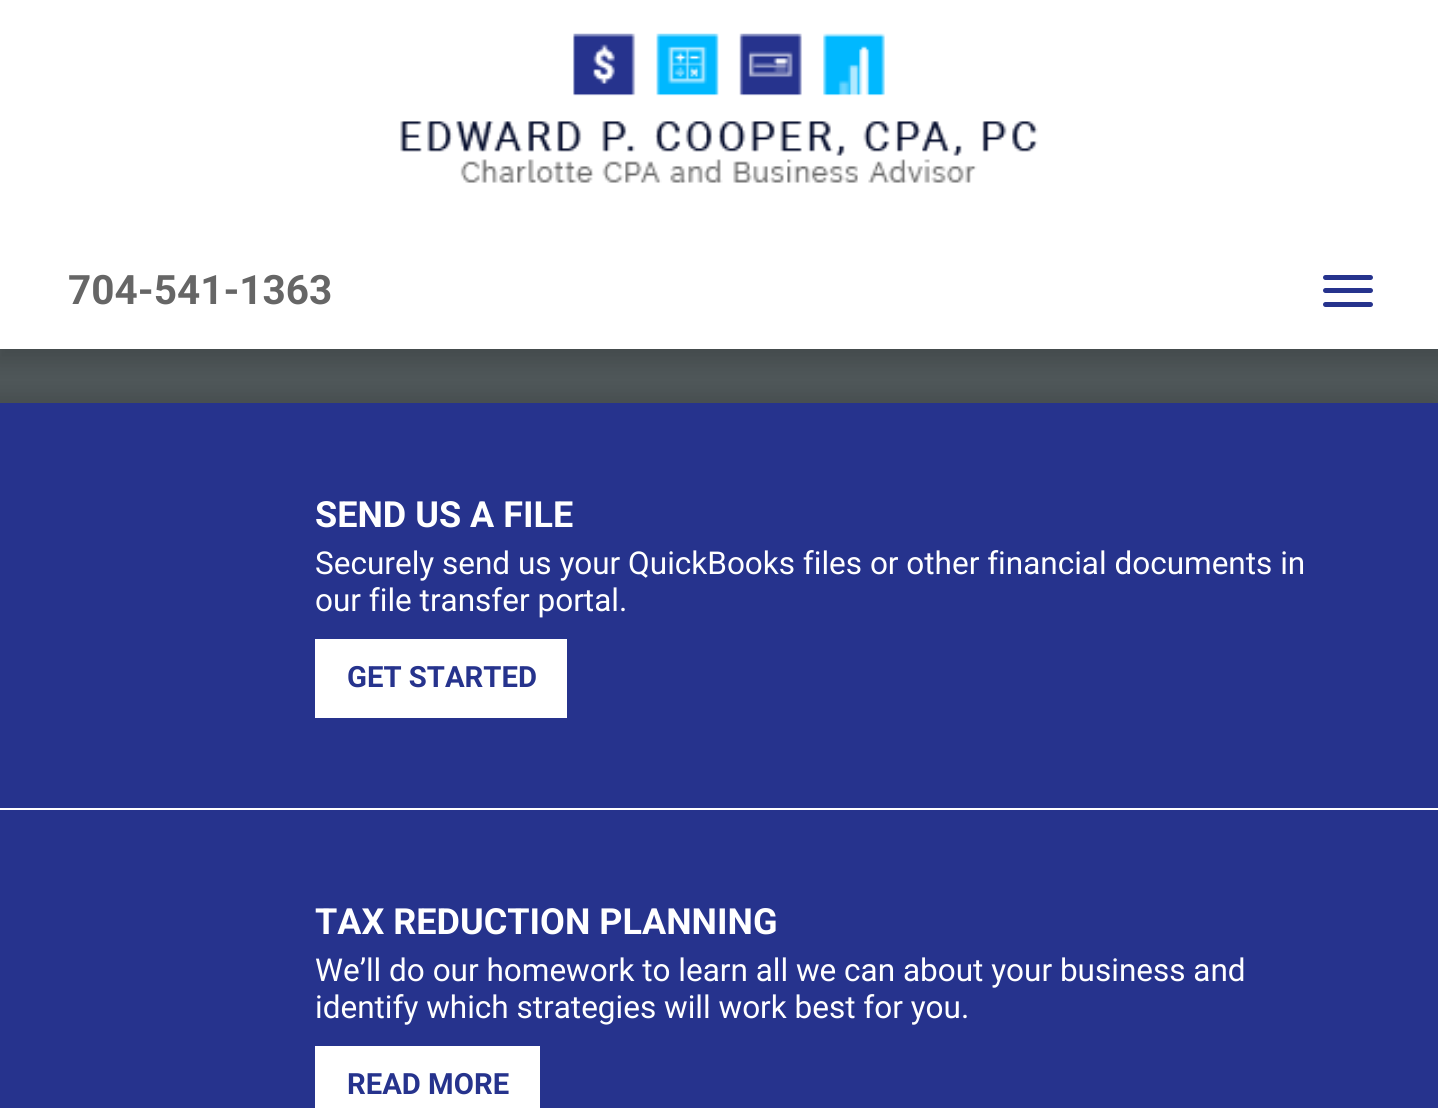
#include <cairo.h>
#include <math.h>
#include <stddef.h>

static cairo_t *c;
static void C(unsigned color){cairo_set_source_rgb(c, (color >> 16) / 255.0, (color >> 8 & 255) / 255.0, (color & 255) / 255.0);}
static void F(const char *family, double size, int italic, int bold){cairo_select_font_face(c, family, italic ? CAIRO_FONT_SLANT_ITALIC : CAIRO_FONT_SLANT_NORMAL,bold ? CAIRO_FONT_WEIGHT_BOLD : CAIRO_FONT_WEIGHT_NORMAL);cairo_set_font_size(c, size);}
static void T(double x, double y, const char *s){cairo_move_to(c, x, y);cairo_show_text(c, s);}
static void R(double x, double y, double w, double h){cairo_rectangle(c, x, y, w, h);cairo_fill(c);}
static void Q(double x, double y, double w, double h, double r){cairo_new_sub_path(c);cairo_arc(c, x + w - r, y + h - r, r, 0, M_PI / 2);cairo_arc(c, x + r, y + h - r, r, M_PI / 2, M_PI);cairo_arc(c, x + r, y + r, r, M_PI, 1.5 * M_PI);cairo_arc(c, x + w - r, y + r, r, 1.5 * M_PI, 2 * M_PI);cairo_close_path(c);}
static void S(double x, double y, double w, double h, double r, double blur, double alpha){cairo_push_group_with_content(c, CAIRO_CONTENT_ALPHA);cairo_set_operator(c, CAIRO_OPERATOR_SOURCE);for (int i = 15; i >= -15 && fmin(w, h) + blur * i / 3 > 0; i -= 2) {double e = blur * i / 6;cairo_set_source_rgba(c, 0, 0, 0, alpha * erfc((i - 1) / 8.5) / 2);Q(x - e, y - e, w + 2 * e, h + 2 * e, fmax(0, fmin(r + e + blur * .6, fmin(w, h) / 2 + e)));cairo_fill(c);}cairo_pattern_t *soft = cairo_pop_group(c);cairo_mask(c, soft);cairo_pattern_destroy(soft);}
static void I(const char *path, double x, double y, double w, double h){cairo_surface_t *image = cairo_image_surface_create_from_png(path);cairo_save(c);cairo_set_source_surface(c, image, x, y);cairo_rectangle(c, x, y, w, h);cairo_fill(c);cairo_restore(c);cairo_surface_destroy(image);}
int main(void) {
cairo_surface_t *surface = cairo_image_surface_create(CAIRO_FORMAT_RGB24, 1438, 1108);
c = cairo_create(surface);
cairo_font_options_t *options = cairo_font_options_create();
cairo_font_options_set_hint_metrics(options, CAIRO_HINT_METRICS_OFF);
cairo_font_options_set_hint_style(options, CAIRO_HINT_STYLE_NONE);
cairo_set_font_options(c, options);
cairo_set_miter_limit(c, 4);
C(0x4f5759);
cairo_paint(c);
C(0x000000);
S(-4,5,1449,357,0,11,.15);
C(0xffffff);
R(0,0,1438,349);
I("1.png",400,33,638,150);
F("Roboto",40.5,0,1);
C(0x666666);
T(68,304,"704-541-1363");
C(0x26338d);
Q(1323,275,50,5,2.5);
cairo_fill(c);
Q(1323,288,50,5,2.5);
cairo_fill(c);
Q(1323,302,50,5,2.5);
cairo_fill(c);
C(0x000000);
S(-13,398,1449,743,0,11,.15);
C(0x26338d);
R(0,403,1438,705);
C(0xffffff);
R(0,808,1438,2);
F("Roboto",36,0,1);
T(315,527,"SEND US A FILE");
F("Roboto",31.5,0,0);
T(315,574,"Securely send us your QuickBooks files or other financial documents in");
T(315,611,"our file transfer portal.");
R(315,639,252,79);
F("Roboto",29.25,0,1);
C(0x26338d);
T(347,687,"GET STARTED");
F("Roboto",36,0,1);
C(0xffffff);
T(315,934,"TAX REDUCTION PLANNING");
F("Roboto",31.5,0,0);
T(315,981,"We’ll do our homework to learn all we can about your business and");
T(315,1018,"identify which strategies will work best for you.");
R(315,1046,225,62);
F("Roboto",29.25,0,1);
C(0x26338d);
T(347,1094,"READ MORE");
cairo_surface_write_to_png(surface, "o.png");
cairo_font_options_destroy(options);
cairo_destroy(c);
cairo_surface_destroy(surface);
return 0;
}
